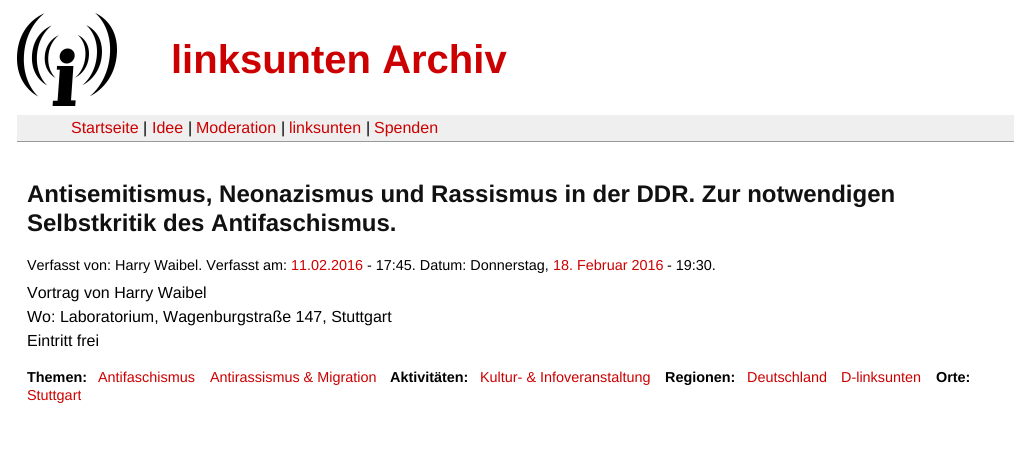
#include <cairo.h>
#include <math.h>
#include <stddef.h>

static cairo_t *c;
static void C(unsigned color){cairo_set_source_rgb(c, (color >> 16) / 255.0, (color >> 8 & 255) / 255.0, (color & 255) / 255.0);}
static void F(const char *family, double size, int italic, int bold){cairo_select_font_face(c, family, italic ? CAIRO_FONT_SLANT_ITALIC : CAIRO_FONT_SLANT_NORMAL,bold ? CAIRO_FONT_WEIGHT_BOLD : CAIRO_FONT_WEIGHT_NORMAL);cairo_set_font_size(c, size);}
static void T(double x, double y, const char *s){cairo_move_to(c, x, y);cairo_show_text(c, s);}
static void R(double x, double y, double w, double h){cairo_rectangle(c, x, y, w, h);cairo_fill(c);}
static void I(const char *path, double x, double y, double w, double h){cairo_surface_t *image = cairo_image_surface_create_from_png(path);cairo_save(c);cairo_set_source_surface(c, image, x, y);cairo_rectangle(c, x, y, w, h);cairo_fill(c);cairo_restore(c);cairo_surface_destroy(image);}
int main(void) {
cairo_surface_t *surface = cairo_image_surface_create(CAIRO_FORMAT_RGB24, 1031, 449);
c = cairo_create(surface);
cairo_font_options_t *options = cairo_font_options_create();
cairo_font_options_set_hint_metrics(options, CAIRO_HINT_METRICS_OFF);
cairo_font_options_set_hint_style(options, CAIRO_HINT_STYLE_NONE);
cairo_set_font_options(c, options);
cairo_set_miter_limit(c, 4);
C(0xffffff);
cairo_paint(c);
I("1.png",17,13,100,93);
F("Liberation Sans",40,0,1);
C(0xcc0000);
T(171,73,"linksunten Archiv");
C(0xefefef);
R(17,115,997,26);
C(0x999999);
R(17,141,997,1);
F("Liberation Sans",16,0,0);
C(0xcc0000);
T(71,133,"Startseite");
C(0x000000);
T(143,133,"|");
C(0xcc0000);
T(152,133,"Idee");
C(0x000000);
T(188,133,"|");
C(0xcc0000);
T(196,133,"Moderation");
C(0x000000);
T(281,133,"|");
C(0xcc0000);
T(289,133,"linksunten");
C(0x000000);
T(366,133,"|");
C(0xcc0000);
T(374,133,"Spenden");
F("Liberation Sans",24,0,1);
C(0x111111);
T(27,202,"Antisemitismus, Neonazismus und Rassismus in der DDR. Zur notwendigen");
T(27,231,"Selbstkritik des Antifaschismus.");
F("Liberation Sans",14.4,0,0);
C(0x000000);
T(27,270,"Verfasst von: Harry Waibel. Verfasst am:");
C(0xcc0000);
T(291,270,"11.02.2016");
C(0x000000);
T(367,270,"- 17:45. Datum: Donnerstag,");
C(0xcc0000);
T(553,270,"18. Februar 2016");
C(0x000000);
T(667,270,"- 19:30.");
F("Liberation Sans",16,0,0);
T(27,298,"Vortrag von Harry Waibel");
T(27,322,"Wo: Laboratorium, Wagenburgstraße 147, Stuttgart");
T(27,346,"Eintritt frei");
F("Liberation Sans",14.4,0,1);
T(27,382,"Themen:");
F("Liberation Sans",14.4,0,0);
C(0xcc0000);
T(98,382,"Antifaschismus");
T(210,382,"Antirassismus & Migration");
F("Liberation Sans",14.4,0,1);
C(0x000000);
T(936,382,"Orte:");
F("Liberation Sans",14.4,0,0);
C(0xcc0000);
T(27,400,"Stuttgart");
F("Liberation Sans",14.4,0,1);
C(0x000000);
T(390,382,"Aktivitäten:");
F("Liberation Sans",14.4,0,0);
C(0xcc0000);
T(480,382,"Kultur- & Infoveranstaltung");
F("Liberation Sans",14.4,0,1);
C(0x000000);
T(665,382,"Regionen:");
F("Liberation Sans",14.4,0,0);
C(0xcc0000);
T(747,382,"Deutschland");
T(841,382,"D-linksunten");
cairo_surface_write_to_png(surface, "o.png");
cairo_font_options_destroy(options);
cairo_destroy(c);
cairo_surface_destroy(surface);
return 0;
}
